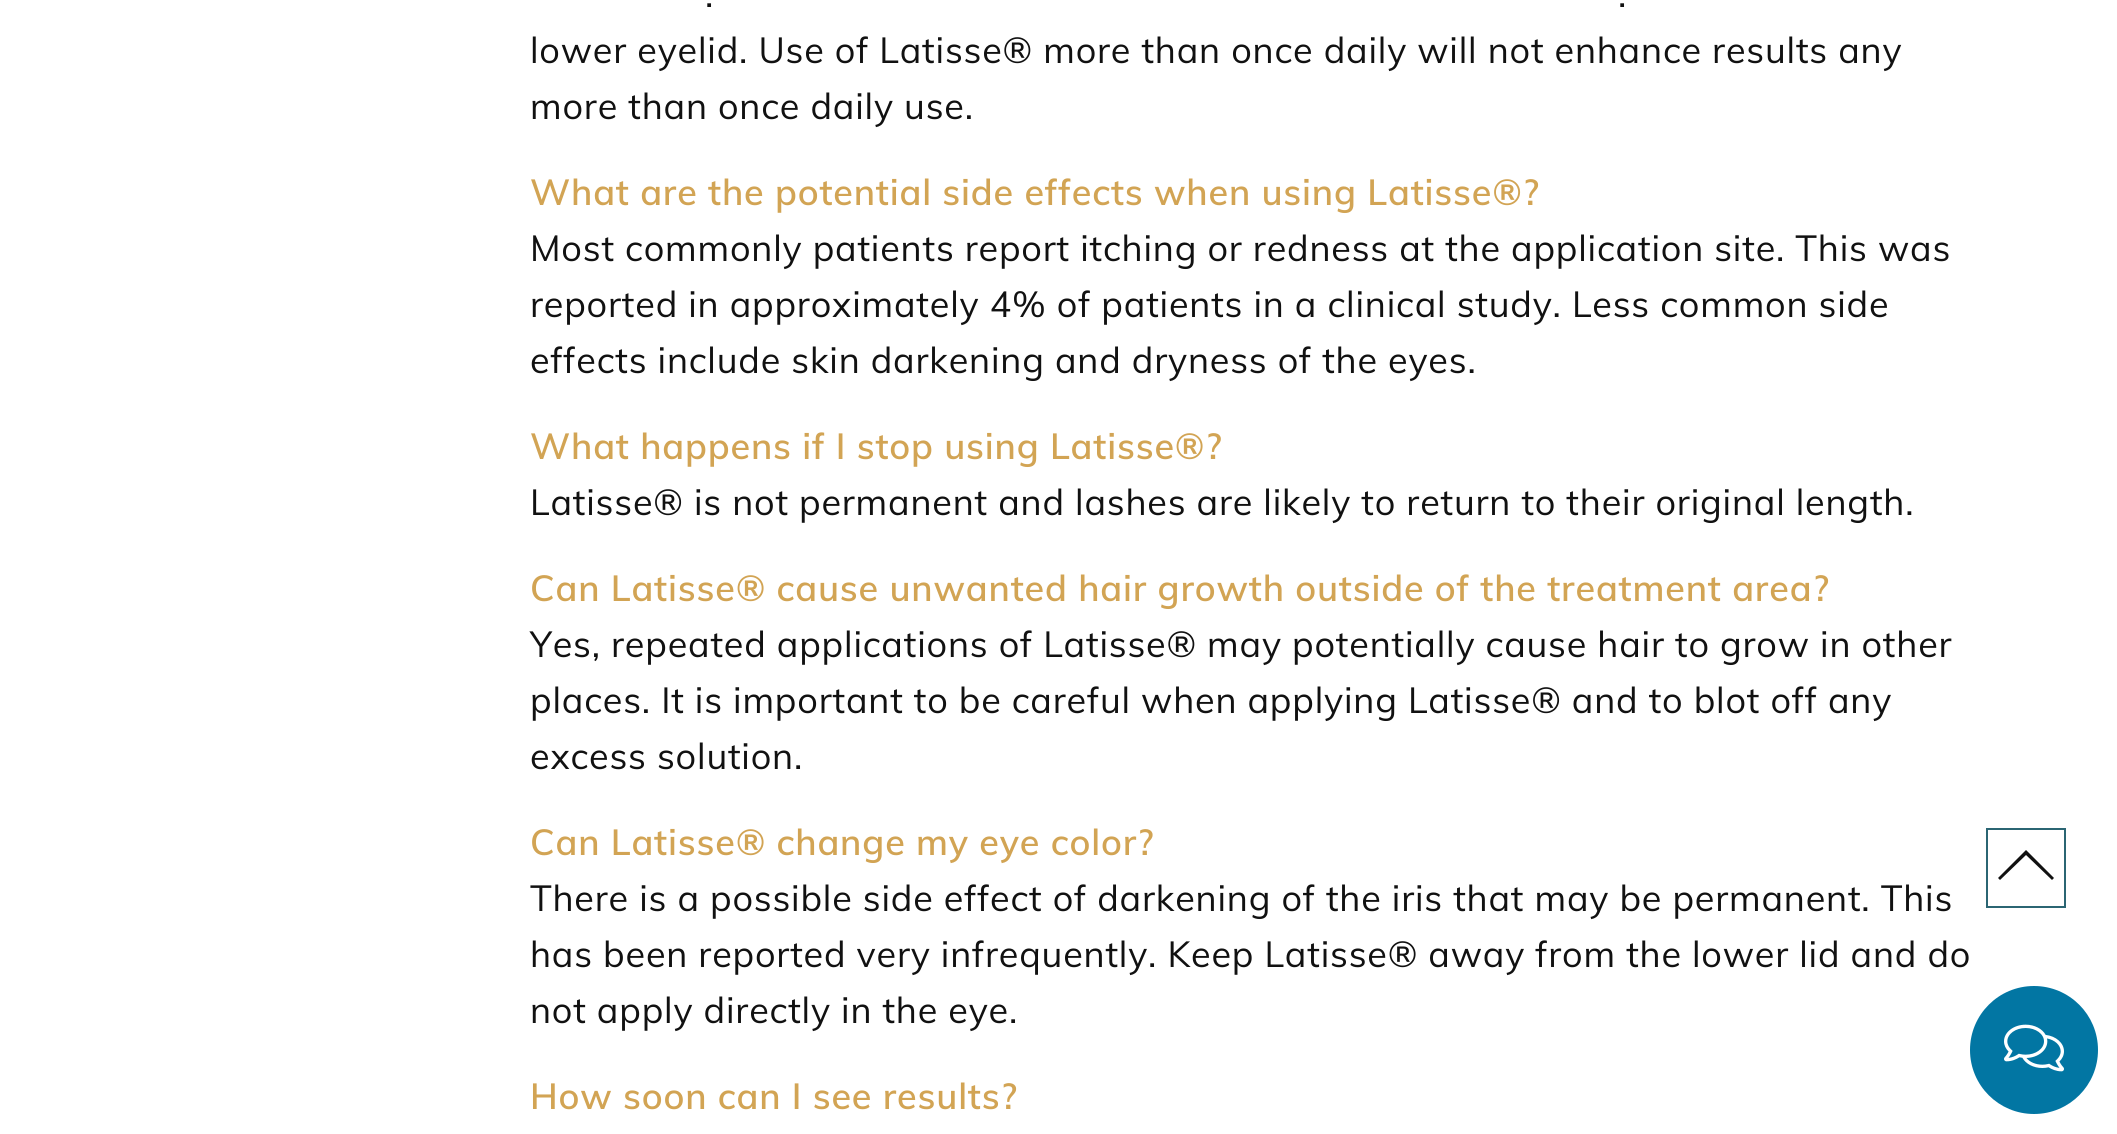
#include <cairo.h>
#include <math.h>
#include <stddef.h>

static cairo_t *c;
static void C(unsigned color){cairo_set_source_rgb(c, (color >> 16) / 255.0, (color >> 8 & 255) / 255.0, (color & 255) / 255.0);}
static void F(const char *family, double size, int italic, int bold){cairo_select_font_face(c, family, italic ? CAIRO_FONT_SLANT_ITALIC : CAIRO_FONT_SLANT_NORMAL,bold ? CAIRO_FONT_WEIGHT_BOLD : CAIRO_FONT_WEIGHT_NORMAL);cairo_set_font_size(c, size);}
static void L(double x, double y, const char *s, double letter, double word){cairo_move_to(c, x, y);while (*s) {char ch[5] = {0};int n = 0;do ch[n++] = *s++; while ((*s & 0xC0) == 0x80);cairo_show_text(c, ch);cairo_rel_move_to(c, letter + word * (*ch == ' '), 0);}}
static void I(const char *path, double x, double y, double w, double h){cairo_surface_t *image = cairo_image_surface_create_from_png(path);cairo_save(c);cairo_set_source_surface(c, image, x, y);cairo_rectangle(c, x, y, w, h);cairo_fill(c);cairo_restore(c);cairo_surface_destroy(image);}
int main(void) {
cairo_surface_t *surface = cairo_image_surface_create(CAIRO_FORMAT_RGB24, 2117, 1134);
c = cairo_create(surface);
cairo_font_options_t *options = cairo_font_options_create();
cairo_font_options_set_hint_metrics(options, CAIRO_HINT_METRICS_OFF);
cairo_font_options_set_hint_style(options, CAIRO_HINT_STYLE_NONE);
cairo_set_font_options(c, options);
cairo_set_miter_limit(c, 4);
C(0xffffff);
cairo_paint(c);
F("Muli",36,0,0);
C(0x111111);
L(705,7,".",.8,0);
L(1618,7,".",.8,0);
L(530,63,"lower eyelid. Use of Latisse® more than once daily will not enhance results any",.8,0);
L(530,119,"more than once daily use.",.8,0);
F("Muli SemiBold",36,0,0);
C(0xd2a454);
L(530,205,"What are the potential side effects when using Latisse®?",.8,0);
F("Muli",36,0,0);
C(0x111111);
L(530,261,"Most commonly patients report itching or redness at the application site. This was",.8,0);
L(530,317,"reported in approximately 4% of patients in a clinical study. Less common side",.8,0);
L(530,373,"effects include skin darkening and dryness of the eyes.",.8,0);
F("Muli SemiBold",36,0,0);
C(0xd2a454);
L(530,459,"What happens if I stop using Latisse®?",.8,0);
F("Muli",36,0,0);
C(0x111111);
L(530,515,"Latisse® is not permanent and lashes are likely to return to their original length.",.8,0);
F("Muli SemiBold",36,0,0);
C(0xd2a454);
L(530,601,"Can Latisse® cause unwanted hair growth outside of the treatment area?",.8,0);
F("Muli",36,0,0);
C(0x111111);
L(530,657,"Yes, repeated applications of Latisse® may potentially cause hair to grow in other",.8,0);
L(530,713,"places. It is important to be careful when applying Latisse® and to blot off any",.8,0);
L(530,769,"excess solution.",.8,0);
F("Muli SemiBold",36,0,0);
C(0xd2a454);
L(530,855,"Can Latisse® change my eye color?",.8,0);
F("Muli",36,0,0);
C(0x111111);
L(530,911,"There is a possible side effect of darkening of the iris that may be permanent. This",.8,0);
L(530,967,"has been reported very infrequently. Keep Latisse® away from the lower lid and do",.8,0);
L(530,1023,"not apply directly in the eye.",.8,0);
F("Muli SemiBold",36,0,0);
C(0xd2a454);
L(530,1109,"How soon can I see results?",.8,0);
cairo_rectangle(c,1987,829,78,78);
C(0x2b6573);
cairo_stroke(c);
C(0x111111);
cairo_new_path(c);
cairo_move_to(c,2026,850);
cairo_line_to(c,2054,878);
cairo_line_to(c,2052,880);
cairo_line_to(c,2026,855);
cairo_line_to(c,2000,880);
cairo_line_to(c,1998,878);
cairo_close_path(c);
cairo_fill(c);
C(0x0276a3);
cairo_arc(c,2034,1050,64,0,2 * M_PI);
cairo_fill(c);
I("1.png",2004,1024,60,48);
cairo_surface_write_to_png(surface, "o.png");
cairo_font_options_destroy(options);
cairo_destroy(c);
cairo_surface_destroy(surface);
return 0;
}
